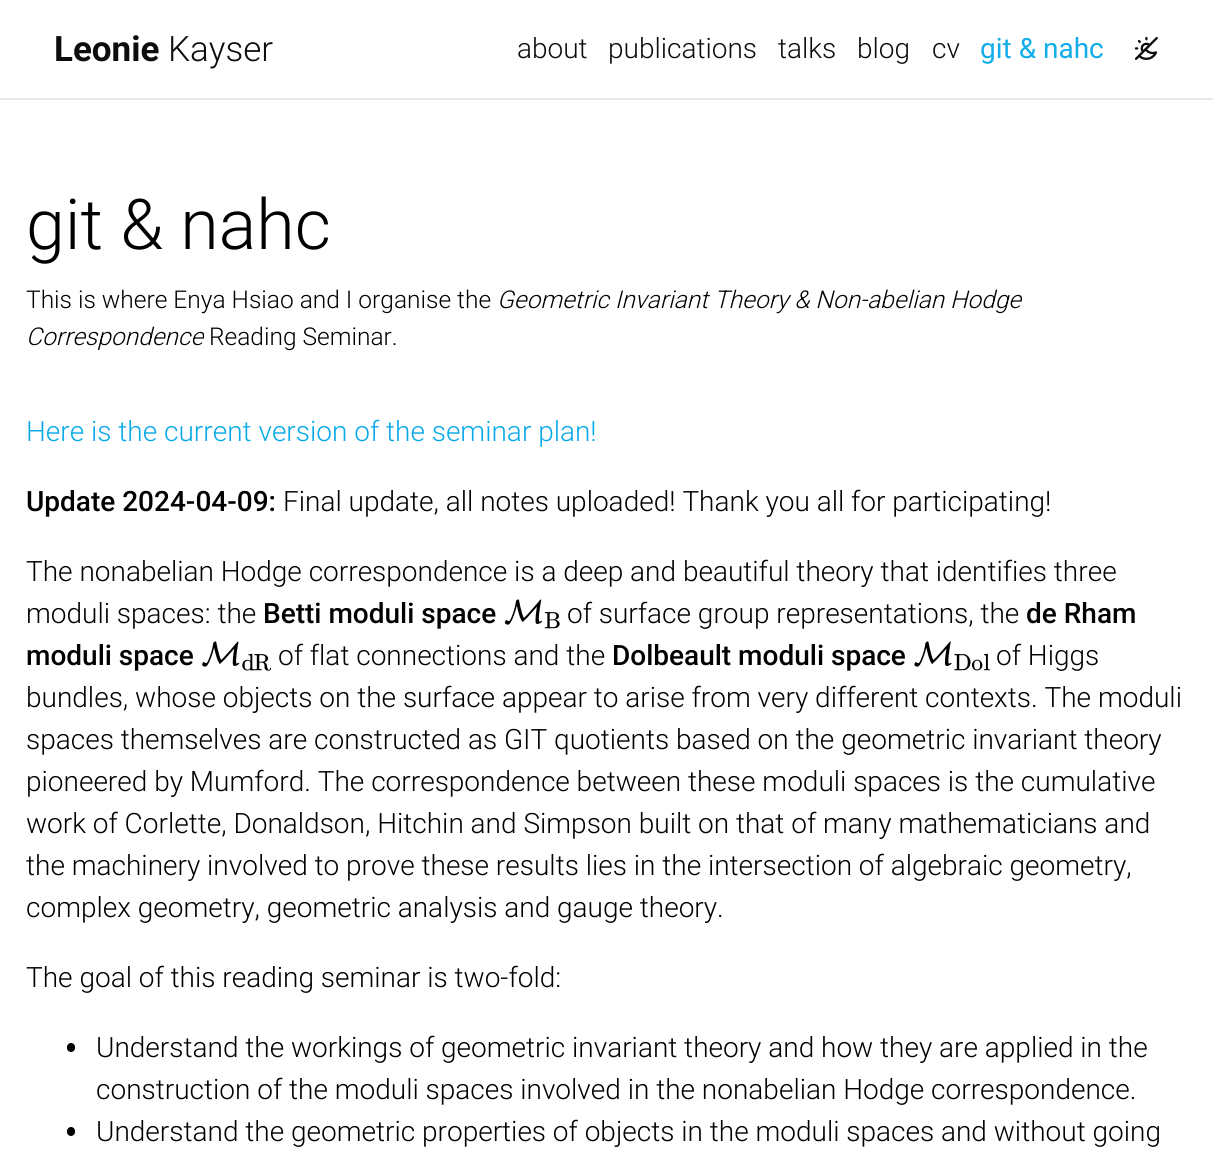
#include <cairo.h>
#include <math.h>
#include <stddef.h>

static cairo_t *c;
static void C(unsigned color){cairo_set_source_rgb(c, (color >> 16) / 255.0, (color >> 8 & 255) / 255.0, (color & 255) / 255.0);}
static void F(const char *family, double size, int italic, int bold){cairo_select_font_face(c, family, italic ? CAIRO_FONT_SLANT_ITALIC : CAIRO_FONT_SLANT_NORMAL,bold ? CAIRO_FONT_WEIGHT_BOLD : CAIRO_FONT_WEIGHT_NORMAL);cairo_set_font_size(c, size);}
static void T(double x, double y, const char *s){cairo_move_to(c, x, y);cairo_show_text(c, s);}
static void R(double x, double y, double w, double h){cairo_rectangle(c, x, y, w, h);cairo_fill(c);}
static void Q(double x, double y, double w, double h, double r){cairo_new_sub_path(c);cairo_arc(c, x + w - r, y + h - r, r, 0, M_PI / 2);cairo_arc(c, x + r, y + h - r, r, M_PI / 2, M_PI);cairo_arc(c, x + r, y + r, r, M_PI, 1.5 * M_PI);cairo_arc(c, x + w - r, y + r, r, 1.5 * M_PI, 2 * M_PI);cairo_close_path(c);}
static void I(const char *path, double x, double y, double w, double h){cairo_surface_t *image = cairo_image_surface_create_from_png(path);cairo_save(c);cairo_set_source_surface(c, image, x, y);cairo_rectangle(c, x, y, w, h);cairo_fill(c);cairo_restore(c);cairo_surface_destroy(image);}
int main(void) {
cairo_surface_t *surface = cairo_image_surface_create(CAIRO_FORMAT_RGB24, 1213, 1153);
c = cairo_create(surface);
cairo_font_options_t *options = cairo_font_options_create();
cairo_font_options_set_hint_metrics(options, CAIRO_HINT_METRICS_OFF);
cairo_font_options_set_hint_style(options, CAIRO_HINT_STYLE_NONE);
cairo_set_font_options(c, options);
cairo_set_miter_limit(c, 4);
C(0xffffff);
cairo_paint(c);
C(0xe7e7e7);
R(0,98,1213,2);
F("Roboto",35,0,1);
C(0x0d0d0d);
T(54,61,"Leonie");
F("Roboto Light",35,0,0);
T(168,61,"Kayser");
F("Roboto Light",28,0,0);
T(517,58,"about");
T(608,58,"publications");
T(778,58,"talks");
T(857,58,"blog");
T(932,58,"cv");
F("Roboto",28,0,0);
C(0x13ade9);
T(980,58,"git & nahc");
I("1.png",1134,36,24,24);
F("Roboto Light",70,0,0);
C(0x000000);
T(26,249,"git & nahc");
F("Roboto Light",24.5,0,0);
T(26,308,"This is where Enya Hsiao and I organise the");
F("Roboto Light",24.5,1,0);
T(497,308,"Geometric Invariant Theory & Non-abelian Hodge");
T(26,345,"Correspondence");
F("Roboto Light",24.5,0,0);
T(209,345,"Reading Seminar.");
F("Roboto Light",28,0,0);
C(0x07a9e8);
T(26,441,"Here is the current version of the seminar plan!");
F("Roboto Medium",28,0,0);
C(0x000000);
T(26,511,"Update 2024-04-09:");
F("Roboto Light",28,0,0);
T(283,511,"Final update, all notes uploaded! Thank you all for participating!");
T(26,581,"The nonabelian Hodge correspondence is a deep and beautiful theory that identifies three");
T(26,623,"moduli spaces: the");
F("Roboto Medium",28,0,0);
T(263,623,"Betti moduli space");
I("2.png",504,599,38,26);
I("3.png",544,612,16,17);
F("Roboto Light",28,0,0);
T(567,623,"of surface group representations, the");
F("Roboto Medium",28,0,0);
T(1026,623,"de Rham");
T(26,665,"moduli space");
I("4.png",202,641,38,26);
I("5.png",242,653,13,18);
I("6.png",254,654,17,17);
F("Roboto Light",28,0,0);
T(278,665,"of flat connections and the");
F("Roboto Medium",28,0,0);
T(612,665,"Dolbeault moduli space");
I("7.png",914,641,38,26);
I("8.png",954,654,17,17);
I("9.png",971,659,12,12);
I("10.png",984,653,6,18);
F("Roboto Light",28,0,0);
T(996,665,"of Higgs");
T(26,707,"bundles, whose objects on the surface appear to arise from very different contexts. The moduli");
T(26,749,"spaces themselves are constructed as GIT quotients based on the geometric invariant theory");
T(26,791,"pioneered by Mumford. The correspondence between these moduli spaces is the cumulative");
T(26,833,"work of Corlette, Donaldson, Hitchin and Simpson built on that of many mathematicians and");
T(26,875,"the machinery involved to prove these results lies in the intersection of algebraic geometry,");
T(26,917,"complex geometry, geometric analysis and gauge theory.");
T(26,987,"The goal of this reading seminar is two-fold:");
Q(67,1043,8,9,4);
cairo_fill(c);
T(96,1057,"Understand the workings of geometric invariant theory and how they are applied in the");
T(96,1099,"construction of the moduli spaces involved in the nonabelian Hodge correspondence.");
Q(67,1127,8,9,4);
cairo_fill(c);
T(96,1141,"Understand the geometric properties of objects in the moduli spaces and without going");
cairo_surface_write_to_png(surface, "o.png");
cairo_font_options_destroy(options);
cairo_destroy(c);
cairo_surface_destroy(surface);
return 0;
}
